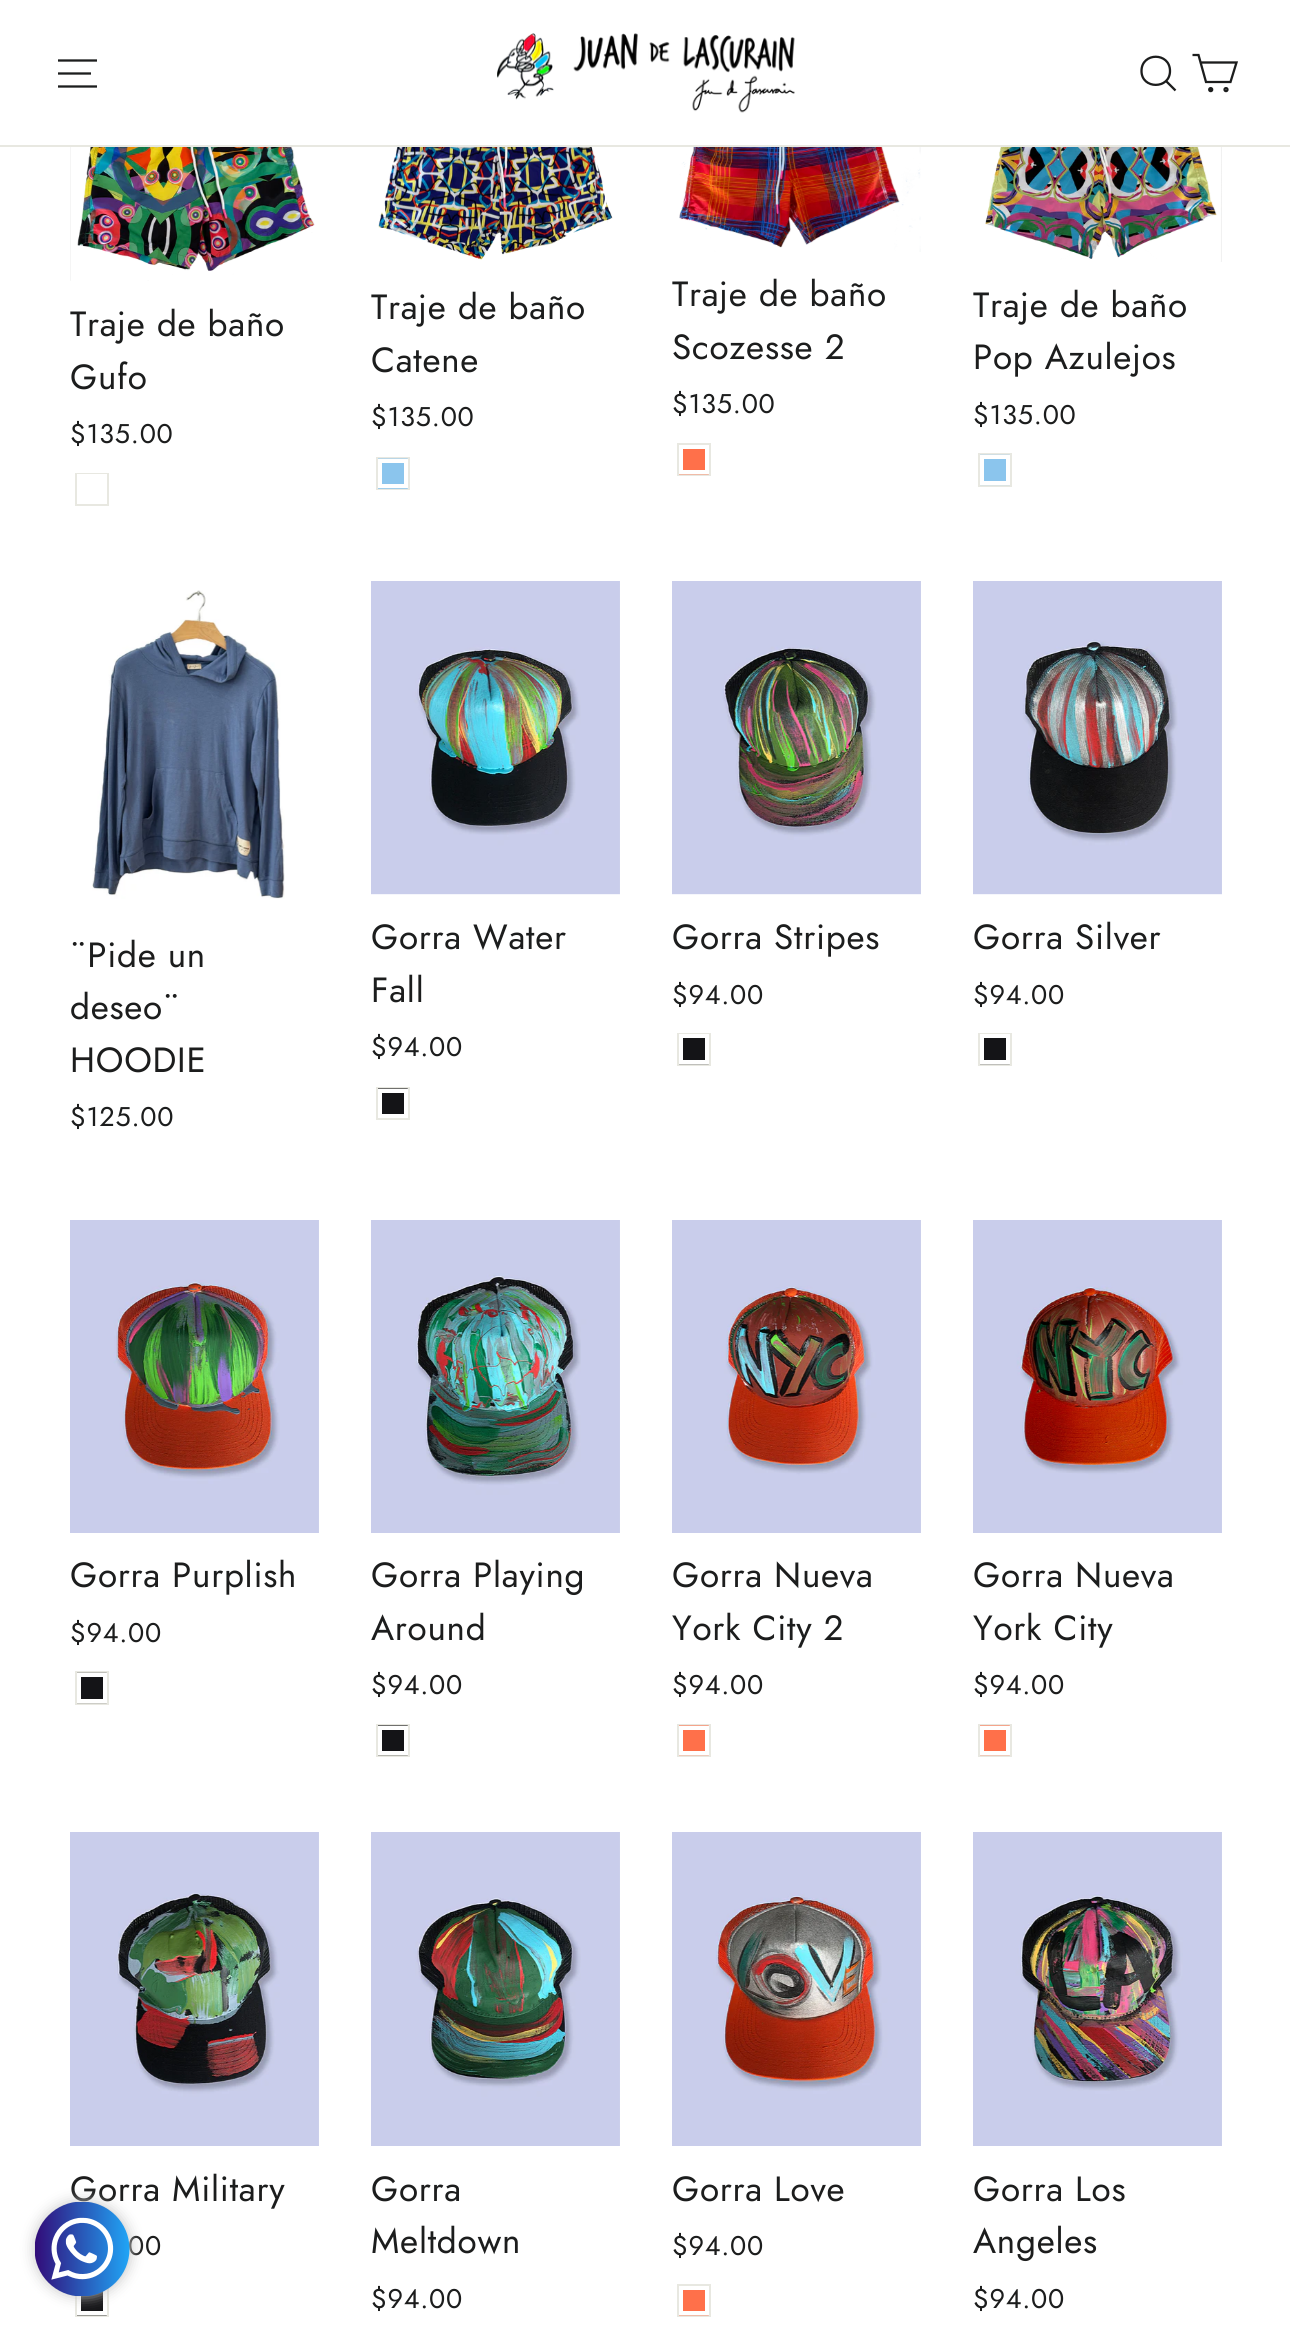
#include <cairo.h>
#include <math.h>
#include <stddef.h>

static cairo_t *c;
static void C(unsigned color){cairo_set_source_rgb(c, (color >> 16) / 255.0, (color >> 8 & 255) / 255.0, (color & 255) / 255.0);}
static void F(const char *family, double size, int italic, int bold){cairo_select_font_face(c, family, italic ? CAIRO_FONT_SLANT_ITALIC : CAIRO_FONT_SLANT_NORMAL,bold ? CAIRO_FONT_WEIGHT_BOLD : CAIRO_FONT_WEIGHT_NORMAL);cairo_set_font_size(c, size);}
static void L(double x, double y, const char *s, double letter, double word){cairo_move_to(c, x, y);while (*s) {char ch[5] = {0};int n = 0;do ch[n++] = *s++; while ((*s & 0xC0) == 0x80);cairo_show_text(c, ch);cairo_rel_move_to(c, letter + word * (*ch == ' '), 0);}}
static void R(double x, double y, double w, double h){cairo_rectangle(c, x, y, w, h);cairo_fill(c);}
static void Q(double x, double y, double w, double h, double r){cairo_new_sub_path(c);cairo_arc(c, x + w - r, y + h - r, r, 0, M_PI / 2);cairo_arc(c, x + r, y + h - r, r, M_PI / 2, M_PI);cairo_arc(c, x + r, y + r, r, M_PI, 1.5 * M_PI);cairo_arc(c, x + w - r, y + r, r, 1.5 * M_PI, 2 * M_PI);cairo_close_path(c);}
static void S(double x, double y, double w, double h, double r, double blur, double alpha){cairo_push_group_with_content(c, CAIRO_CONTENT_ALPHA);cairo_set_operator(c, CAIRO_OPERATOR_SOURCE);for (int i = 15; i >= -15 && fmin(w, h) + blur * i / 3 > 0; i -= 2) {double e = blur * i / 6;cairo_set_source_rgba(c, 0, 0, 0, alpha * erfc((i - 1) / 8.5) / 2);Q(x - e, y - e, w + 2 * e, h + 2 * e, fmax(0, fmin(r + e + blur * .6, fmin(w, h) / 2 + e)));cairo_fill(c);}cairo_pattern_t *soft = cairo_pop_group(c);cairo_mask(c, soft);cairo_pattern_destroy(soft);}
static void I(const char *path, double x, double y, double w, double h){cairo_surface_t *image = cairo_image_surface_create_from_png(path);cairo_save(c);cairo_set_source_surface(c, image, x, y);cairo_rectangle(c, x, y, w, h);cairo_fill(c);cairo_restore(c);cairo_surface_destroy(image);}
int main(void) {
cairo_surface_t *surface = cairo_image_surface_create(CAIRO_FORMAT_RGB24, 1290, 2330);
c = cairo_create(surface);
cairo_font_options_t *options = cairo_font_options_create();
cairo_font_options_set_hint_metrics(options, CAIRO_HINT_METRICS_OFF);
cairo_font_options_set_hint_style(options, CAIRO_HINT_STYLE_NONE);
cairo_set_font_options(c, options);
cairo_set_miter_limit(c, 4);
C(0xffffff);
cairo_paint(c);
C(0xe8e8e1);
R(0,145,1290,2);
cairo_new_path(c);
cairo_move_to(c,58,60.5);
cairo_line_to(c,97,60.5);
cairo_move_to(c,58,73.5);
cairo_line_to(c,91,73.5);
cairo_move_to(c,58,86.5);
cairo_line_to(c,97,86.5);
C(0x1c1d1d);
cairo_set_line_width(c,2.3);
cairo_stroke(c);
I("1.png",497,33,298,80);
cairo_new_path(c);
cairo_move_to(c,1170,71);
cairo_curve_to(c,1170,89.5,1141.5,89.5,1141.5,71);
cairo_curve_to(c,1141.5,52,1170,52,1170,71);
cairo_close_path(c);
cairo_move_to(c,1175.5,90.5);
cairo_line_to(c,1166,81);
cairo_stroke(c);
cairo_new_path(c);
cairo_move_to(c,1200.5,62.5);
cairo_line_to(c,1236.5,62.5);
cairo_line_to(c,1230.5,82);
cairo_line_to(c,1206,82);
cairo_line_to(c,1198.5,55);
cairo_line_to(c,1192.5,55);
cairo_stroke(c);
cairo_arc(c,1210.7,89.6,1.5,0,2 * M_PI);
cairo_fill_preserve(c);
cairo_stroke(c);
cairo_arc(c,1226,89.6,1.5,0,2 * M_PI);
cairo_stroke(c);
I("2.png",70,147,245,134);
F("Jost",35,0,0);
L(70,336,"Traje de baño",.75,0);
L(70,389,"Gufo",.75,0);
F("Jost",27,0,0);
L(70,443,"$135.00",.75,0);
cairo_rectangle(c,76,474,32,31);
C(0xe8e8e1);
cairo_set_line_width(c,2);
cairo_stroke(c);
cairo_rectangle(c,79,476,26,26);
C(0xffffff);
cairo_set_line_width(c,4);
cairo_stroke(c);
I("3.png",378,147,235,113);
F("Jost",35,0,0);
C(0x1c1d1d);
L(371,319,"Traje de baño",.75,0);
L(371,372,"Catene",.75,0);
F("Jost",27,0,0);
L(371,426,"$135.00",.75,0);
cairo_rectangle(c,377,458,32,31);
C(0xe8e8e1);
cairo_set_line_width(c,2);
cairo_stroke(c);
I("4.png",378,458,30,31);
cairo_rectangle(c,380,461,26,25);
C(0xffffff);
cairo_set_line_width(c,4);
cairo_stroke(c);
I("5.png",679,147,242,105);
F("Jost",35,0,0);
C(0x1c1d1d);
L(672,306,"Traje de baño",.75,0);
L(672,359,"Scozesse 2",.75,0);
F("Jost",27,0,0);
L(672,413,"$135.00",.75,0);
cairo_rectangle(c,678,444,32,31);
C(0xe8e8e1);
cairo_set_line_width(c,2);
cairo_stroke(c);
I("6.png",679,449,30,26);
cairo_rectangle(c,681,447,26,25);
C(0xffffff);
cairo_set_line_width(c,4);
cairo_stroke(c);
I("7.png",985,147,237,115);
F("Jost",35,0,0);
C(0x1c1d1d);
L(973,317,"Traje de baño",.75,0);
L(973,369,"Pop Azulejos",.75,0);
F("Jost",27,0,0);
L(973,424,"$135.00",.75,0);
cairo_rectangle(c,979,454,32,32);
C(0xe8e8e1);
cairo_set_line_width(c,2);
cairo_stroke(c);
I("8.png",980,454,30,32);
cairo_rectangle(c,982,457,26,26);
C(0xffffff);
cairo_set_line_width(c,4);
cairo_stroke(c);
I("9.png",92,590,193,309);
F("Jost",35,0,0);
C(0x1c1d1d);
L(70,967,"¨Pide un",.75,0);
L(70,1019,"deseo¨",.75,0);
L(70,1072,"HOODIE",.75,0);
F("Jost",27,0,0);
L(70,1126,"$125.00",.75,0);
I("10.png",371,581,249,314);
F("Jost",35,0,0);
L(371,949,"Gorra Water",.75,0);
L(371,1002,"Fall",.75,0);
F("Jost",27,0,0);
L(371,1056,"$94.00",.75,0);
cairo_rectangle(c,377,1088,32,31);
C(0xe8e8e1);
cairo_set_line_width(c,2);
cairo_stroke(c);
I("11.png",378,1088,30,26);
cairo_rectangle(c,380,1091,26,25);
C(0xffffff);
cairo_set_line_width(c,4);
cairo_stroke(c);
I("12.png",672,581,249,314);
F("Jost",35,0,0);
C(0x1c1d1d);
L(672,949,"Gorra Stripes",.75,0);
F("Jost",27,0,0);
L(672,1004,"$94.00",.75,0);
cairo_rectangle(c,678,1034,32,31);
C(0xe8e8e1);
cairo_set_line_width(c,2);
cairo_stroke(c);
I("13.png",679,1038,30,27);
cairo_rectangle(c,681,1036,26,26);
C(0xffffff);
cairo_set_line_width(c,4);
cairo_stroke(c);
I("14.png",973,581,249,314);
F("Jost",35,0,0);
C(0x1c1d1d);
L(973,949,"Gorra Silver",.75,0);
F("Jost",27,0,0);
L(973,1004,"$94.00",.75,0);
cairo_rectangle(c,979,1034,32,31);
C(0xe8e8e1);
cairo_set_line_width(c,2);
cairo_stroke(c);
I("13.png",980,1038,30,27);
cairo_rectangle(c,982,1036,26,26);
C(0xffffff);
cairo_set_line_width(c,4);
cairo_stroke(c);
I("15.png",70,1220,249,313);
F("Jost",35,0,0);
C(0x1c1d1d);
L(70,1587,"Gorra Purplish",.75,0);
F("Jost",27,0,0);
L(70,1642,"$94.00",.75,0);
cairo_rectangle(c,76,1672,32,32);
C(0xe8e8e1);
cairo_set_line_width(c,2);
cairo_stroke(c);
I("16.png",77,1672,30,32);
cairo_rectangle(c,79,1675,26,26);
C(0xffffff);
cairo_set_line_width(c,4);
cairo_stroke(c);
I("17.png",371,1220,249,313);
F("Jost",35,0,0);
C(0x1c1d1d);
L(371,1587,"Gorra Playing",.75,0);
L(371,1640,"Around",.75,0);
F("Jost",27,0,0);
L(371,1694,"$94.00",.75,0);
cairo_rectangle(c,377,1725,32,31);
C(0xe8e8e1);
cairo_set_line_width(c,2);
cairo_stroke(c);
I("18.png",378,1725,30,31);
cairo_rectangle(c,380,1728,26,25);
C(0xffffff);
cairo_set_line_width(c,4);
cairo_stroke(c);
I("19.png",672,1220,249,313);
F("Jost",35,0,0);
C(0x1c1d1d);
L(672,1587,"Gorra Nueva",.75,0);
L(672,1640,"York City 2",.75,0);
F("Jost",27,0,0);
L(672,1694,"$94.00",.75,0);
cairo_rectangle(c,678,1725,32,31);
C(0xe8e8e1);
cairo_set_line_width(c,2);
cairo_stroke(c);
I("20.png",679,1725,30,31);
cairo_rectangle(c,681,1728,26,25);
C(0xffffff);
cairo_set_line_width(c,4);
cairo_stroke(c);
I("21.png",973,1220,249,313);
F("Jost",35,0,0);
C(0x1c1d1d);
L(973,1587,"Gorra Nueva",.75,0);
L(973,1640,"York City",.75,0);
F("Jost",27,0,0);
L(973,1694,"$94.00",.75,0);
cairo_rectangle(c,979,1725,32,31);
C(0xe8e8e1);
cairo_set_line_width(c,2);
cairo_stroke(c);
I("20.png",980,1725,30,31);
cairo_rectangle(c,982,1728,26,25);
C(0xffffff);
cairo_set_line_width(c,4);
cairo_stroke(c);
I("22.png",70,1832,249,314);
F("Jost",35,0,0);
C(0x1c1d1d);
L(70,2201,"Gorra Military",.75,0);
F("Jost",27,0,0);
L(128,2255,"00",.75,0);
cairo_rectangle(c,76,2285,32,31);
C(0xe8e8e1);
cairo_set_line_width(c,2);
cairo_stroke(c);
I("23.png",77,2291,30,25);
cairo_rectangle(c,79,2288,26,25);
C(0xffffff);
cairo_set_line_width(c,4);
cairo_stroke(c);
I("24.png",371,1832,249,314);
F("Jost",35,0,0);
C(0x1c1d1d);
L(371,2201,"Gorra",.75,0);
L(371,2253,"Meltdown",.75,0);
F("Jost",27,0,0);
L(371,2308,"$94.00",.75,0);
I("25.png",672,1832,249,314);
F("Jost",35,0,0);
L(672,2201,"Gorra Love",.75,0);
F("Jost",27,0,0);
L(672,2255,"$94.00",.75,0);
cairo_rectangle(c,678,2285,32,31);
C(0xe8e8e1);
cairo_set_line_width(c,2);
cairo_stroke(c);
I("6.png",679,2290,30,26);
cairo_rectangle(c,681,2288,26,25);
C(0xffffff);
cairo_set_line_width(c,4);
cairo_stroke(c);
I("26.png",973,1832,249,314);
F("Jost",35,0,0);
C(0x1c1d1d);
L(973,2201,"Gorra Los",.75,0);
L(973,2253,"Angeles",.75,0);
F("Jost",27,0,0);
L(973,2308,"$94.00",.75,0);
C(0xc2c2c2);
S(35,2202,95,94,47,7,1);
I("27.png",35,2202,95,94);
cairo_surface_write_to_png(surface, "o.png");
cairo_font_options_destroy(options);
cairo_destroy(c);
cairo_surface_destroy(surface);
return 0;
}
